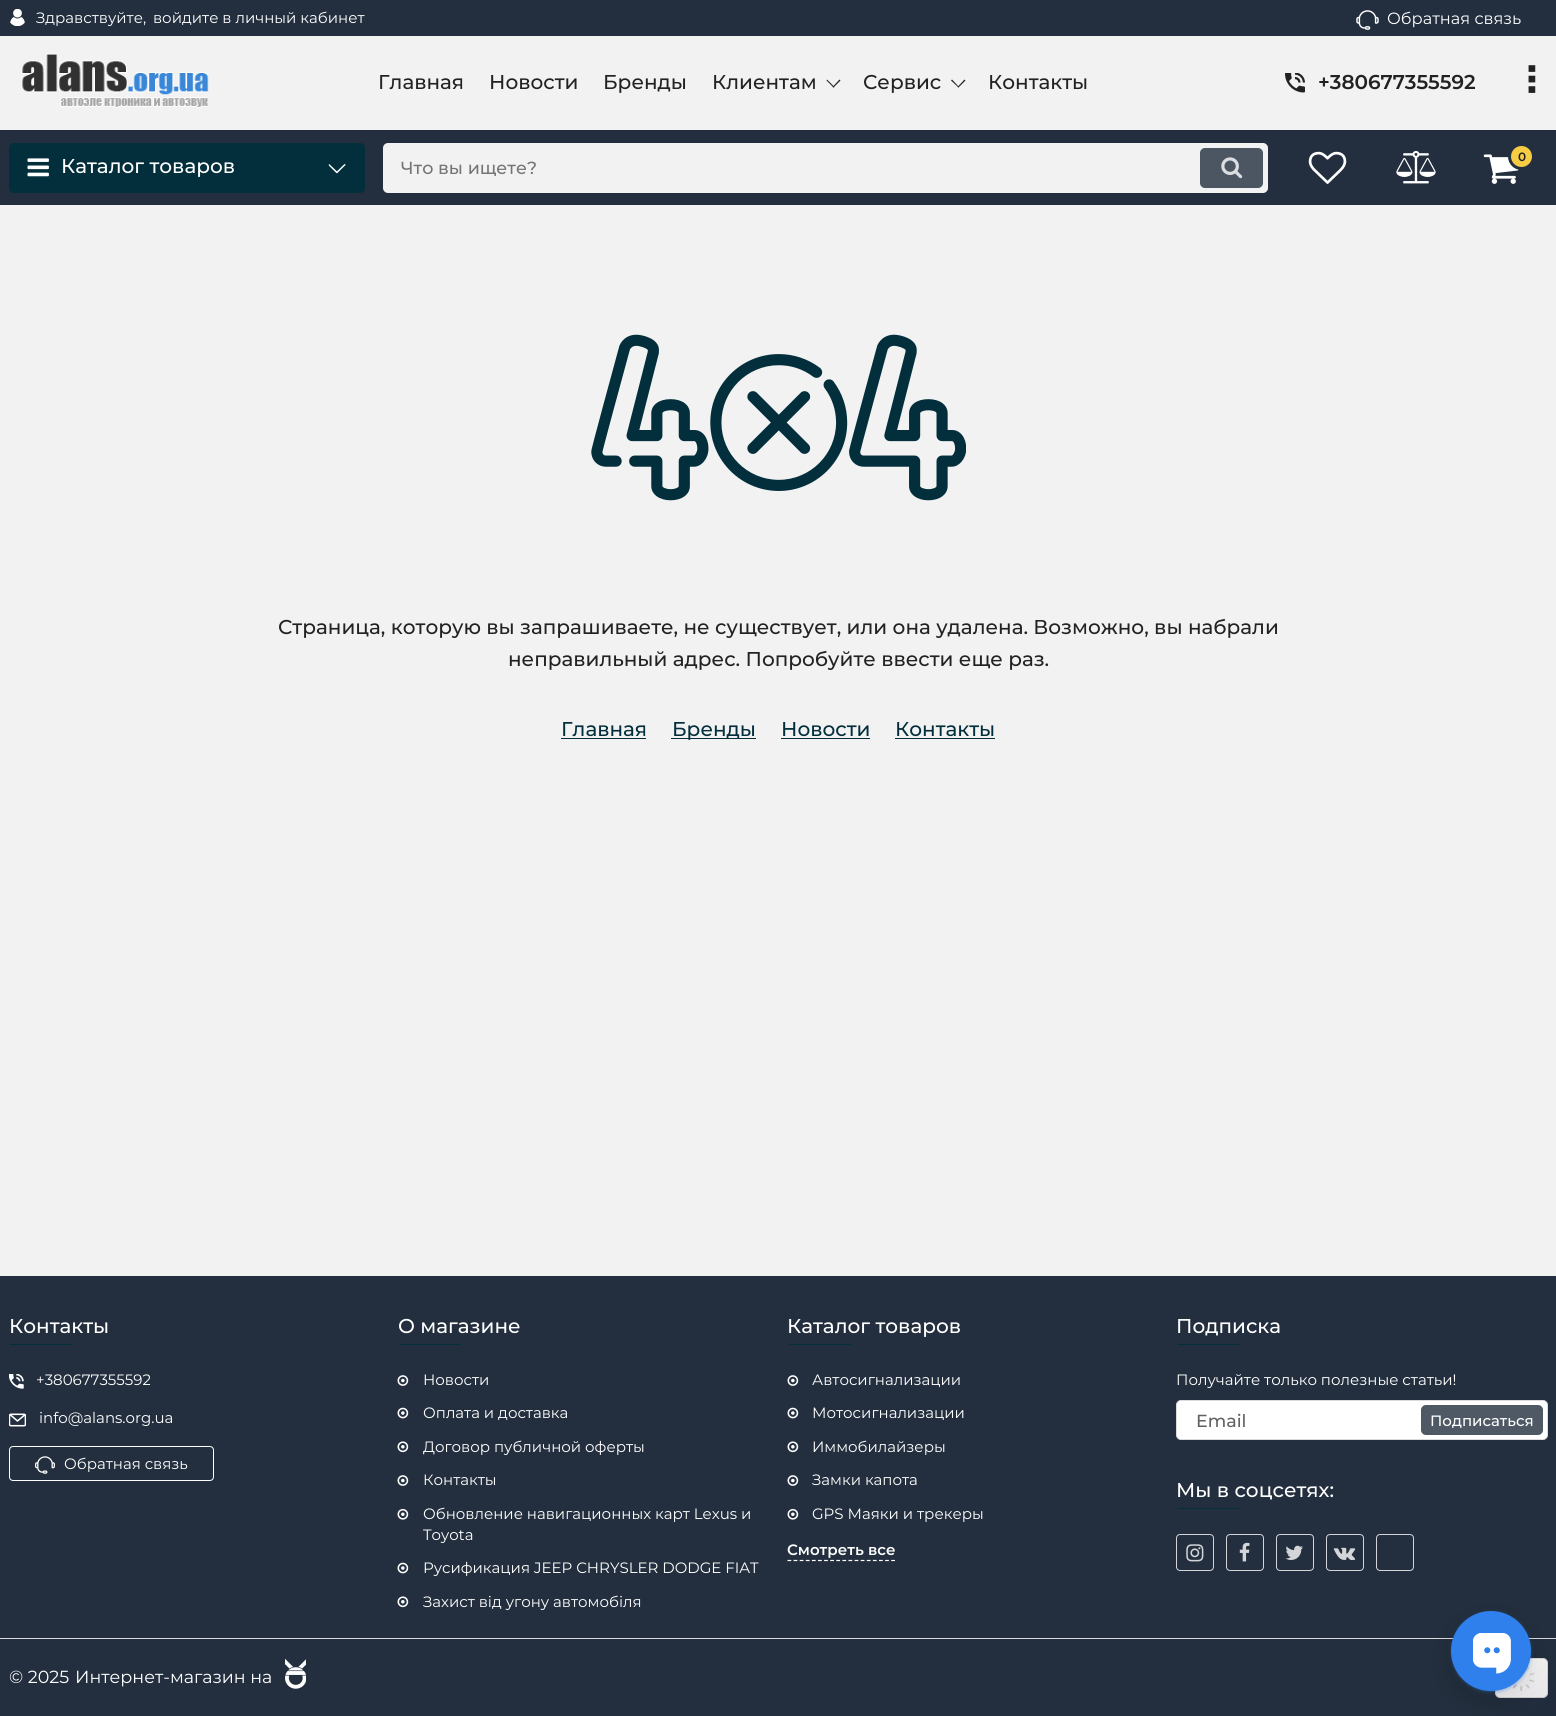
#include <cairo.h>
#include <math.h>
#include <stddef.h>

static cairo_t *c;
static void C(unsigned color){cairo_set_source_rgb(c, (color >> 16) / 255.0, (color >> 8 & 255) / 255.0, (color & 255) / 255.0);}
static void F(const char *family, double size, int italic, int bold){cairo_select_font_face(c, family, italic ? CAIRO_FONT_SLANT_ITALIC : CAIRO_FONT_SLANT_NORMAL,bold ? CAIRO_FONT_WEIGHT_BOLD : CAIRO_FONT_WEIGHT_NORMAL);cairo_set_font_size(c, size);}
static void T(double x, double y, const char *s){cairo_move_to(c, x, y);cairo_show_text(c, s);}
static void R(double x, double y, double w, double h){cairo_rectangle(c, x, y, w, h);cairo_fill(c);}
static void Q(double x, double y, double w, double h, double r){cairo_new_sub_path(c);cairo_arc(c, x + w - r, y + h - r, r, 0, M_PI / 2);cairo_arc(c, x + r, y + h - r, r, M_PI / 2, M_PI);cairo_arc(c, x + r, y + r, r, M_PI, 1.5 * M_PI);cairo_arc(c, x + w - r, y + r, r, 1.5 * M_PI, 2 * M_PI);cairo_close_path(c);}
static void S(double x, double y, double w, double h, double r, double blur, double alpha){cairo_push_group_with_content(c, CAIRO_CONTENT_ALPHA);cairo_set_operator(c, CAIRO_OPERATOR_SOURCE);for (int i = 15; i >= -15 && fmin(w, h) + blur * i / 3 > 0; i -= 2) {double e = blur * i / 6;cairo_set_source_rgba(c, 0, 0, 0, alpha * erfc((i - 1) / 8.5) / 2);Q(x - e, y - e, w + 2 * e, h + 2 * e, fmax(0, fmin(r + e + blur * .6, fmin(w, h) / 2 + e)));cairo_fill(c);}cairo_pattern_t *soft = cairo_pop_group(c);cairo_mask(c, soft);cairo_pattern_destroy(soft);}
static void I(const char *path, double x, double y, double w, double h){cairo_surface_t *image = cairo_image_surface_create_from_png(path);cairo_save(c);cairo_set_source_surface(c, image, x, y);cairo_rectangle(c, x, y, w, h);cairo_fill(c);cairo_restore(c);cairo_surface_destroy(image);}
int main(void) {
cairo_surface_t *surface = cairo_image_surface_create(CAIRO_FORMAT_RGB24, 1556, 1716);
c = cairo_create(surface);
cairo_font_options_t *options = cairo_font_options_create();
cairo_font_options_set_hint_metrics(options, CAIRO_HINT_METRICS_OFF);
cairo_font_options_set_hint_style(options, CAIRO_HINT_STYLE_NONE);
cairo_set_font_options(c, options);
cairo_set_miter_limit(c, 4);
cairo_pattern_t *gradient;
C(0xf2f2f2);
cairo_paint(c);
C(0x232f3e);
R(0,0,1556,36);
I("1.png",10,9,15,17);
F("Montserrat",15,0,0);
C(0xffffff);
T(36,23,"Здравствуйте,");
T(153,23,"войдите в личный кабинет");
I("2.png",1356,10,23,20);
F("Montserrat",16.25,0,0);
T(1387,24,"Обратная связь");
I("3.png",21,53,188,55);
F("Montserrat Medium",20,0,0);
C(0x222222);
T(378,89,"Главная");
T(489,89,"Новости");
T(603,89,"Бренды");
T(712,89,"Клиентам");
cairo_new_path(c);
cairo_move_to(c,839.5,79.5);
cairo_line_to(c,840.5,80.5);
cairo_line_to(c,833.5,87.5);
cairo_line_to(c,832.5,87);
cairo_close_path(c);
cairo_fill(c);
cairo_new_path(c);
cairo_move_to(c,827,79.5);
cairo_line_to(c,834.5,87);
cairo_line_to(c,833.5,87.5);
cairo_line_to(c,826.5,80.5);
cairo_close_path(c);
cairo_fill(c);
T(863,89,"Сервис");
cairo_new_path(c);
cairo_move_to(c,964.5,79.5);
cairo_line_to(c,965.5,80.5);
cairo_line_to(c,958.5,87.5);
cairo_line_to(c,957.5,87);
cairo_close_path(c);
cairo_fill(c);
cairo_new_path(c);
cairo_move_to(c,952,79.5);
cairo_line_to(c,959,87);
cairo_line_to(c,958.5,87.5);
cairo_line_to(c,951,80.5);
cairo_close_path(c);
cairo_fill(c);
T(988,89,"Контакты");
I("4.png",1285,73,20,20);
F("Montserrat SemiBold",20,0,0);
T(1318,89,"+380677355592");
F("DejaVu Sans",38,0,1);
T(1523,96,"⠇");
C(0x232f3e);
R(0,130,1556,75);
I("5.png",1308,151,39,33);
I("6.png",1396,150,40,34);
I("7.png",1483,154,36,30);
C(0xf5cc43);
cairo_arc(c,1521.5,156.5,12,0,2 * M_PI);
cairo_fill_preserve(c);
C(0x232f3e);
cairo_set_line_width(c,3);
cairo_stroke(c);
F("Montserrat SemiBold",12,0,0);
C(0x222222);
T(1518,161,"0");
C(0x032f3d);
Q(9,143,356,50,5);
cairo_fill(c);
I("8.png",27,158,22,19);
F("Montserrat Medium",20,0,0);
C(0xffffff);
T(61,173,"Каталог товаров");
I("9.png",328,164,18,10);
C(0xf2f2f2);
Q(383,143,885,50,5);
cairo_fill(c);
F("Montserrat Medium",17.5,0,0);
C(0x757575);
T(401,174,"Что вы ищете?");
C(0x4c5662);
Q(1200,148,63,40,5);
cairo_fill(c);
I("10.png",1221,157,22,22);
I("11.png",591,334,375,167);
F("Montserrat Medium",20,0,0);
C(0x222222);
T(278,634,"Страница, которую вы запрашиваете, не существует, или она удалена. Возможно, вы набрали");
T(508,666,"неправильный адрес. Попробуйте ввести еще раз.");
C(0x032f3d);
T(561,736,"Главная");
R(561,738,85,1);
R(671,738,85,1);
T(672,736,"Бренды");
T(781,736,"Новости");
R(781,738,89,1);
T(895,736,"Контакты");
R(895,738,100,1);
C(0x232f3e);
R(0,1276,1556,440);
C(0xffffff);
T(9,1333,"Контакты");
C(0x032f3d);
R(10,1344,63,1);
I("12.png",9,1374,15,15);
F("Montserrat",15,0,0);
C(0xffffff);
T(36,1385,"+380677355592");
I("13.png",9,1413,17,14);
T(39,1423,"info@alans.org.ua");
Q(9.5,1446.5,204,34,3.5);
cairo_set_line_width(c,1);
cairo_stroke(c);
I("14.png",35,1456,20,18);
T(64,1469,"Обратная связь");
F("Montserrat Medium",20,0,0);
T(398,1333,"О магазине");
C(0x032f3d);
R(399,1344,62,1);
I("15.png",397,1375,12,11);
F("Montserrat",15,0,0);
C(0xffffff);
T(423,1385,"Новости");
I("16.png",397,1407,12,12);
T(423,1418,"Оплата и доставка");
I("17.png",397,1441,12,12);
T(423,1452,"Договор публичной оферты");
I("15.png",397,1475,12,11);
T(423,1485,"Контакты");
I("18.png",397,1508,12,12);
T(423,1519,"Обновление навигационных карт Lexus и");
T(423,1540,"Toyota");
I("16.png",397,1562,12,12);
T(423,1573,"Русификация JEEP CHRYSLER DODGE FIAT");
I("17.png",397,1596,12,12);
T(423,1607,"Захист від угону автомобіля");
F("Montserrat Medium",20,0,0);
T(787,1333,"Каталог товаров");
C(0x032f3d);
R(789,1344,62,1);
I("15.png",787,1375,12,11);
F("Montserrat",15,0,0);
C(0xffffff);
T(812,1385,"Автосигнализации");
I("16.png",787,1407,12,12);
T(812,1418,"Мотосигнализации");
I("17.png",787,1441,12,12);
T(812,1452,"Иммобилайзеры");
I("15.png",787,1475,12,11);
T(812,1485,"Замки капота");
I("18.png",787,1508,12,12);
T(812,1519,"GPS Маяки и трекеры");
cairo_new_path(c);
cairo_move_to(c,787.5,1560.5);
cairo_line_to(c,895,1560.5);
cairo_set_line_width(c,1.2);
cairo_set_dash(c,(double[]){3.75,2.35},2,0);
cairo_stroke(c);
F("Montserrat SemiBold",15,0,0);
T(787,1555,"Смотреть все");
F("Montserrat Medium",20,0,0);
T(1176,1333,"Подписка");
C(0x032f3d);
R(1178,1344,62,1);
F("Montserrat",15,0,0);
C(0xffffff);
T(1176,1385,"Получайте только полезные статьи!");
Q(1176.5,1400.5,371,39,4.5);
cairo_fill_preserve(c);
C(0xdbdbdb);
cairo_set_line_width(c,1);
cairo_set_dash(c,NULL,0,0);
cairo_stroke(c);
F("Montserrat Medium",17.5,0,0);
C(0x626262);
T(1196,1427,"Email");
C(0x4f5965);
Q(1421,1405,122,30,5);
cairo_fill(c);
F("Montserrat Medium",15,0,0);
C(0xffffff);
T(1430,1426,"Подписаться");
F("Montserrat Medium",20,0,0);
T(1176,1497,"Мы в соцсетях:");
C(0x032f3d);
R(1178,1508,62,1);
Q(1176.5,1534.5,37,36,3.5);
C(0xd3d5d8);
cairo_stroke(c);
I("19.png",1186,1544,18,18);
Q(1226.5,1534.5,37,36,3.5);
cairo_stroke(c);
I("20.png",1239,1542,11,20);
Q(1276.5,1534.5,37,36,3.5);
cairo_stroke(c);
I("21.png",1285,1545,18,15);
Q(1326.5,1534.5,37,36,3.5);
cairo_stroke(c);
I("22.png",1333,1547,23,13);
Q(1376.5,1534.5,37,36,3.5);
cairo_stroke(c);
C(0xdbdbdb);
R(0,1638,1556,1);
F("Montserrat",17.5,0,0);
C(0xffffff);
T(9,1683,"© 2025");
T(75,1683,"Интернет-магазин на");
I("23.png",285,1659,21,30);
C(0xfffdfd);
Q(1495.5,1658.5,52,39,4.5);
cairo_fill_preserve(c);
C(0xdbdbdb);
cairo_stroke(c);
I("24.png",1502,1658,38,33);
gradient = cairo_pattern_create_linear(1431,1591,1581,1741);
cairo_pattern_add_color_stop_rgba(gradient,.5,0.055,0.055,0.161,0);
cairo_pattern_add_color_stop_rgba(gradient,1,0.055,0.055,0.161,.2);
cairo_set_source(c,gradient);
cairo_pattern_destroy(gradient);
R(1495,1638,61,78);
C(0x000000);
S(1451,1621,80,80,40,12.5,.16);
C(0x2f80ed);
S(1454,1615,75,75,37.5,2.5,1);
C(0x2f80ed);
cairo_arc(c,1491,1651,40,0,2 * M_PI);
cairo_fill(c);
I("25.png",1473,1633,38,41);
cairo_surface_write_to_png(surface, "o.png");
cairo_font_options_destroy(options);
cairo_destroy(c);
cairo_surface_destroy(surface);
return 0;
}
